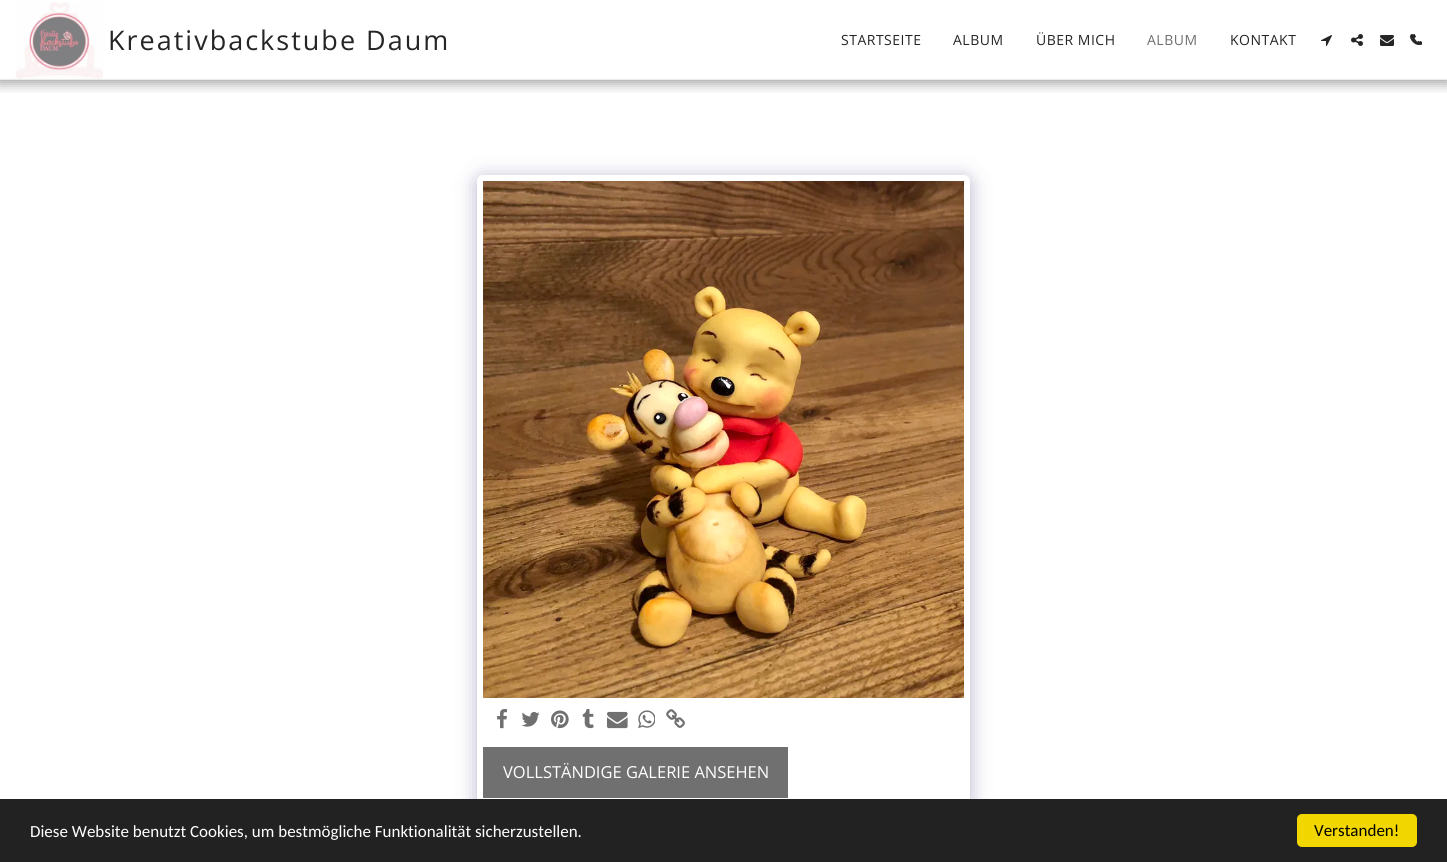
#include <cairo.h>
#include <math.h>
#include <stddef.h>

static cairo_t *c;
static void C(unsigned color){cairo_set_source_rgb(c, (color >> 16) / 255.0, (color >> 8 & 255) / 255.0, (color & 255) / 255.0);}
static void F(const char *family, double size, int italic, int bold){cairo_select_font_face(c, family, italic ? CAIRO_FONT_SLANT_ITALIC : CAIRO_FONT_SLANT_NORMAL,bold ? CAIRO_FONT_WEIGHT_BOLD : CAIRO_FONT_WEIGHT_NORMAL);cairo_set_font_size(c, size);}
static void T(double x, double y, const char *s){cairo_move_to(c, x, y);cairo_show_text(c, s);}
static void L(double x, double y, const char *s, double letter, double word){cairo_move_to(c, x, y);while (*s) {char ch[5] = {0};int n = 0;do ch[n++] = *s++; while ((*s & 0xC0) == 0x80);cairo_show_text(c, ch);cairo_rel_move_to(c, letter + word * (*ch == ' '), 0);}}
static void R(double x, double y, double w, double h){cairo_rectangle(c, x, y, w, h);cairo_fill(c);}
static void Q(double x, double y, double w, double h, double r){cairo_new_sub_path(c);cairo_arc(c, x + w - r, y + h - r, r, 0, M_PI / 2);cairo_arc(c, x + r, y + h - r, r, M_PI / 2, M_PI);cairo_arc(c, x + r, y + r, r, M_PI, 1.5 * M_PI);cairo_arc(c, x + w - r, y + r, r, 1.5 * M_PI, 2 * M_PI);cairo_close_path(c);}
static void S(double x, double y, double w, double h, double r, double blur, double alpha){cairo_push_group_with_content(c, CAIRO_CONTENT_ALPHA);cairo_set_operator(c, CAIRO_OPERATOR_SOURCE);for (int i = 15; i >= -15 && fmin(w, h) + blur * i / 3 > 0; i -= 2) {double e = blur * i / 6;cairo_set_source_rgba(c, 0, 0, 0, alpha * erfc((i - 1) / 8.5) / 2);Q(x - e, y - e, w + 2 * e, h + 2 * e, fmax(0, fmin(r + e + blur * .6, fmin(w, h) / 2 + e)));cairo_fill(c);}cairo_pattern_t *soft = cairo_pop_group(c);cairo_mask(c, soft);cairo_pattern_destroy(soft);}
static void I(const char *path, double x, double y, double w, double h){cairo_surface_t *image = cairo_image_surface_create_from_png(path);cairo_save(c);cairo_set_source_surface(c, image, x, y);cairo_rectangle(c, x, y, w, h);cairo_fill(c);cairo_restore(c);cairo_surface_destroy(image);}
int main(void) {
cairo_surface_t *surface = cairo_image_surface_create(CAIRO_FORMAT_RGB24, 1447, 862);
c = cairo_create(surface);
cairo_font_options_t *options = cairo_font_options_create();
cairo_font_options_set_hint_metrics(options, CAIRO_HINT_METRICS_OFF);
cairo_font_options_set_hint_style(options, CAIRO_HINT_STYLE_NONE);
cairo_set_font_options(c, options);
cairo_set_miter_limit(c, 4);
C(0xffffff);
cairo_paint(c);
cairo_save(c);
cairo_rectangle(c,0,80,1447,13);
cairo_clip(c);
C(0x000000);
S(-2,0,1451,84,0,6,.35);
cairo_restore(c);
C(0xebebeb);
R(0,79,1447,1);
I("1.png",15,2,88,77);
F("Open Sans",27,0,0);
C(0x252525);
L(108,50,"Kreativbackstube Daum",2,0);
F("Open Sans",14,0,0);
L(841,45,"STARTSEITE",.5,0);
L(953,45,"ALBUM",.5,0);
L(1036,45,"ÜBER MICH",.5,0);
C(0x707070);
L(1147,45,"ALBUM",.5,0);
C(0x252525);
L(1230,45,"KONTAKT",.5,0);
I("2.png",1321,35,11,11);
I("3.png",1351,34,12,12);
I("4.png",1380,35,14,11);
I("5.png",1412,34,10,11);
I("6.png",1410,34,10,11);
C(0x4d3f7a);
S(477,178,493,629,6,10,.4);
C(0xffffff);
Q(477,175,493,629,6);
cairo_fill(c);
I("7.png",483,181,481,517);
I("8.png",497,709,11,20);
I("9.png",521,712,19,15);
I("10.png",551,710,18,19);
I("11.png",582,709,12,20);
I("12.png",607,711,21,18);
I("13.png",638,710,17,19);
I("14.png",666,709,19,19);
C(0x707070);
R(483,747,305,51);
F("Open Sans",16.5,0,0);
C(0xffffff);
T(503,778,"VOLLSTÄNDIGE GALERIE ANSEHEN");
C(0x222222);
R(0,799,1447,63);
F("Carlito",17,0,0);
C(0xffffff);
T(30,837,"Diese Website benutzt Cookies, um bestmögliche Funktionalität sicherzustellen.");
C(0xf1d600);
Q(1297,814,120,33,5);
cairo_fill(c);
C(0x000000);
T(1314,836,"Verstanden!");
cairo_surface_write_to_png(surface, "o.png");
cairo_font_options_destroy(options);
cairo_destroy(c);
cairo_surface_destroy(surface);
return 0;
}
